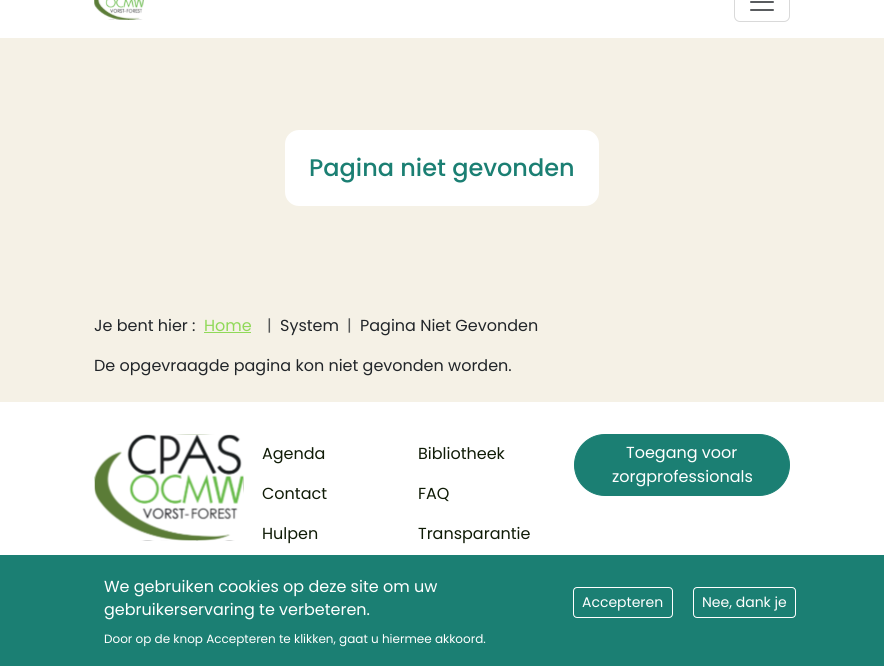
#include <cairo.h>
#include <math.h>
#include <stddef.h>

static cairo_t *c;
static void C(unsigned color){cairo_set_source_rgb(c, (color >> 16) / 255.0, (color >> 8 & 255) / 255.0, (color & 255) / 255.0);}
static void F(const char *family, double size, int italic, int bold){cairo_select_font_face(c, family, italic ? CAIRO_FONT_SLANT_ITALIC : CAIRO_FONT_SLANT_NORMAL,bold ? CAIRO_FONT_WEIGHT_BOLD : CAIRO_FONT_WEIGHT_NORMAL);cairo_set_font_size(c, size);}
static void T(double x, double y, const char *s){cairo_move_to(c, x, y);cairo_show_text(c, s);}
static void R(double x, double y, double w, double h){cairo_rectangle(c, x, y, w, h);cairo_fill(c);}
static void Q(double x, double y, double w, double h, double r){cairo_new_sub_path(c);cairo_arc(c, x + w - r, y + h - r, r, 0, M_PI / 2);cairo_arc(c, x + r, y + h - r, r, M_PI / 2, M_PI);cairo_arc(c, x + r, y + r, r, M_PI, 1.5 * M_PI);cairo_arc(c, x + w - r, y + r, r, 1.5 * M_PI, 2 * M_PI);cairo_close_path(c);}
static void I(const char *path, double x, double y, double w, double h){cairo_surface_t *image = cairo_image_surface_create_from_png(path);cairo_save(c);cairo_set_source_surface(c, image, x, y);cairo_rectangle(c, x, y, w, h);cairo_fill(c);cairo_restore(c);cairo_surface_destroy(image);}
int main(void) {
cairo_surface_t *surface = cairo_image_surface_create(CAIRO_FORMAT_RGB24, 884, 666);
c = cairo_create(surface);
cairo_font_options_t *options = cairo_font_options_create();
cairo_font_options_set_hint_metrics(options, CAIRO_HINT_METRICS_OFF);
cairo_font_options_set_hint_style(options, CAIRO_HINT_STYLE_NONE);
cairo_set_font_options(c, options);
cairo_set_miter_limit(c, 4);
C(0xf5f1e6);
cairo_paint(c);
C(0xffffff);
R(0,0,884,38);
I("1.png",94,0,50,20);
Q(734.5,-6.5,55,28,5.5);
C(0xd9d9d9);
cairo_set_line_width(c,1);
cairo_stroke(c);
I("2.png",750,1,24,10);
C(0xffffff);
Q(285,130,314,76,14);
cairo_fill(c);
F("Poppins Medium",24,0,0);
C(0x1b7f73);
T(309,176,"Pagina niet gevonden");
F("Poppins",16,0,0);
C(0x212529);
T(94,331,"Je bent hier :");
C(0x90d958);
T(204,331,"Home");
R(204,332,47,1);
C(0x565858);
T(267,331,"|");
C(0x212529);
T(280,331,"System");
C(0x565858);
T(347,331,"|");
C(0x212529);
T(360,331,"Pagina Niet Gevonden");
T(94,371,"De opgevraagde pagina kon niet gevonden worden.");
C(0xffffff);
R(0,402,884,153);
I("3.png",94,434,150,107);
C(0x0f1b06);
T(262,459,"Agenda");
T(418,459,"Bibliotheek");
T(262,499,"Contact");
T(418,499,"FAQ");
T(262,539,"Hulpen");
T(418,539,"Transparantie");
C(0x1b7f73);
Q(574.5,434.5,215,61,30.5);
cairo_fill_preserve(c);
cairo_stroke(c);
C(0xffffff);
T(626,458,"Toegang voor");
T(612,482,"zorgprofessionals");
C(0x1b7f73);
R(0,555,884,111);
C(0xffffff);
T(104,592,"We gebruiken cookies op deze site om uw");
T(104,615,"gebruikerservaring te verbeteren.");
F("Poppins",12,0,0);
T(104,643,"Door op de knop Accepteren te klikken, gaat u hiermee akkoord.");
Q(573.5,587.5,99,30,3.5);
cairo_stroke(c);
F("Poppins",14,0,0);
T(582,607,"Accepteren");
Q(693.5,587.5,102,30,3.5);
cairo_stroke(c);
T(702,607,"Nee, dank je");
cairo_surface_write_to_png(surface, "o.png");
cairo_font_options_destroy(options);
cairo_destroy(c);
cairo_surface_destroy(surface);
return 0;
}
